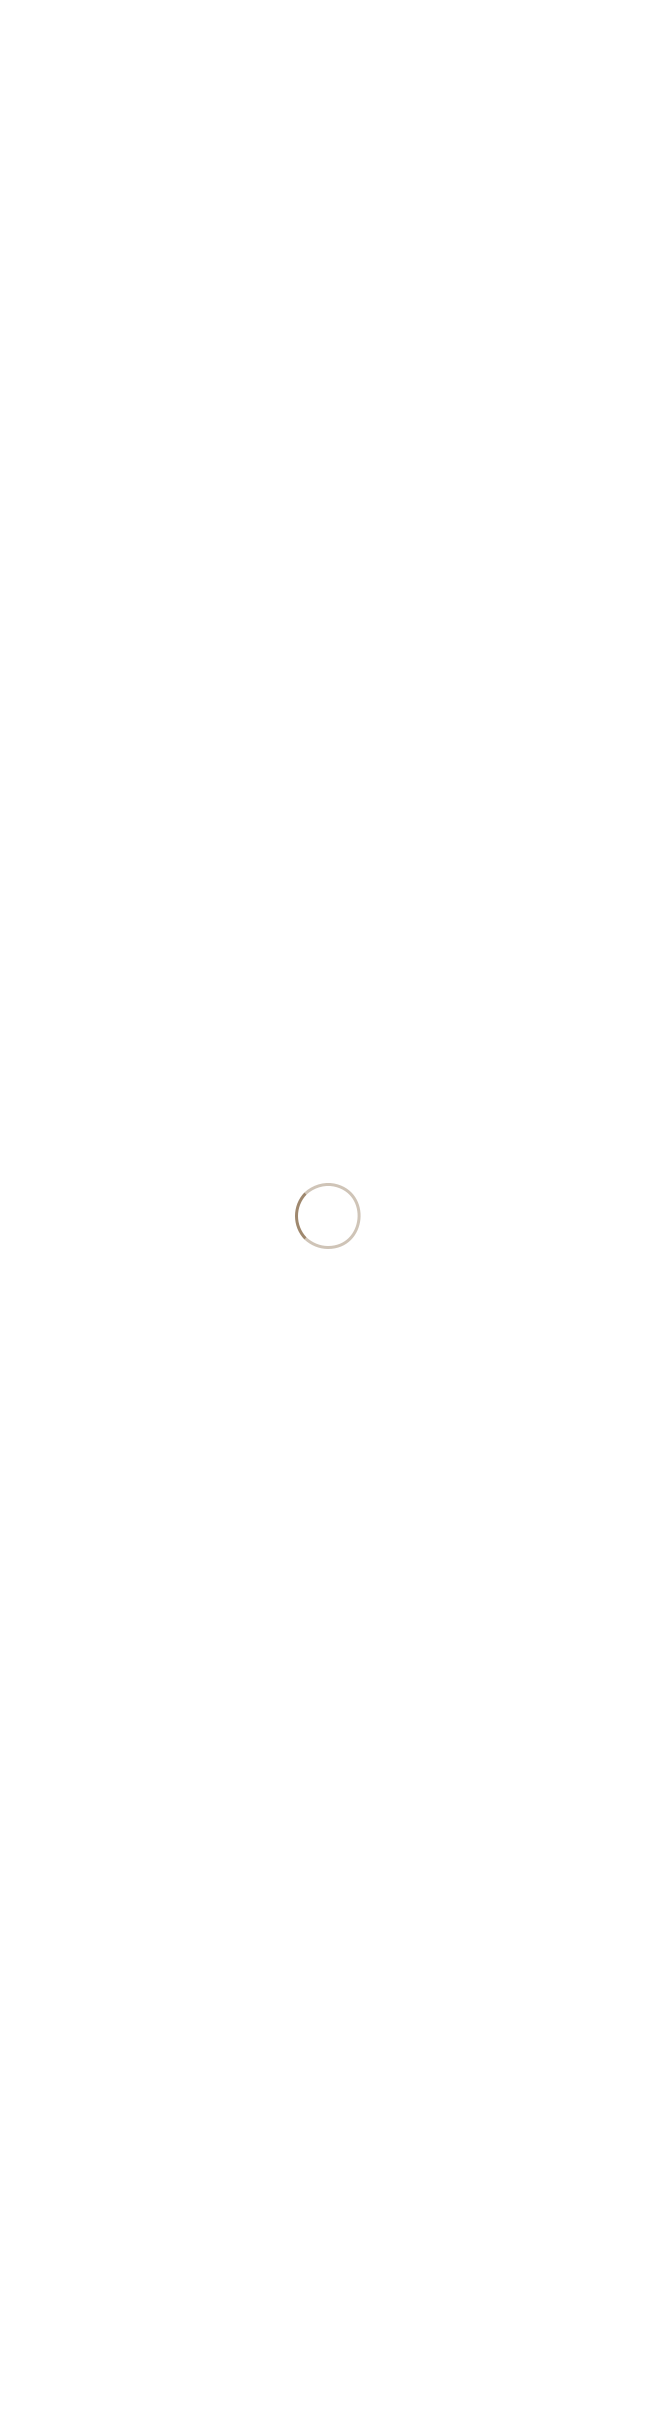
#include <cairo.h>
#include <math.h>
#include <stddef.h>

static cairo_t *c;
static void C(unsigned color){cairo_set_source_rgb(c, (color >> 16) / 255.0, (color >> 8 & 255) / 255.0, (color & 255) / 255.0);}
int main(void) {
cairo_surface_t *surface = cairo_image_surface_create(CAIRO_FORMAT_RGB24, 656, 2431);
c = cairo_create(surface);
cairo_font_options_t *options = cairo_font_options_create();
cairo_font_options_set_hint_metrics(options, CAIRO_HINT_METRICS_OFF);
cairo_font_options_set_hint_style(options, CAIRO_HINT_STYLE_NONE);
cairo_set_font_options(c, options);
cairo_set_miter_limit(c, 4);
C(0xffffff);
cairo_paint(c);
cairo_new_path(c);
cairo_move_to(c,305.5,1193.5);
cairo_curve_to(c,313,1186.5,324,1183,334,1185);
cairo_curve_to(c,371,1192.5,365.5,1247.5,328,1247.5);
cairo_curve_to(c,319.5,1247.5,311.5,1244,305.5,1238.5);
C(0xcfc4b7);
cairo_set_line_width(c,3);
cairo_stroke(c);
cairo_new_path(c);
cairo_move_to(c,305.5,1238.5);
cairo_curve_to(c,293.5,1226,293.5,1206,305.5,1193.5);
C(0x9f886e);
cairo_stroke(c);
cairo_surface_write_to_png(surface, "o.png");
cairo_font_options_destroy(options);
cairo_destroy(c);
cairo_surface_destroy(surface);
return 0;
}
